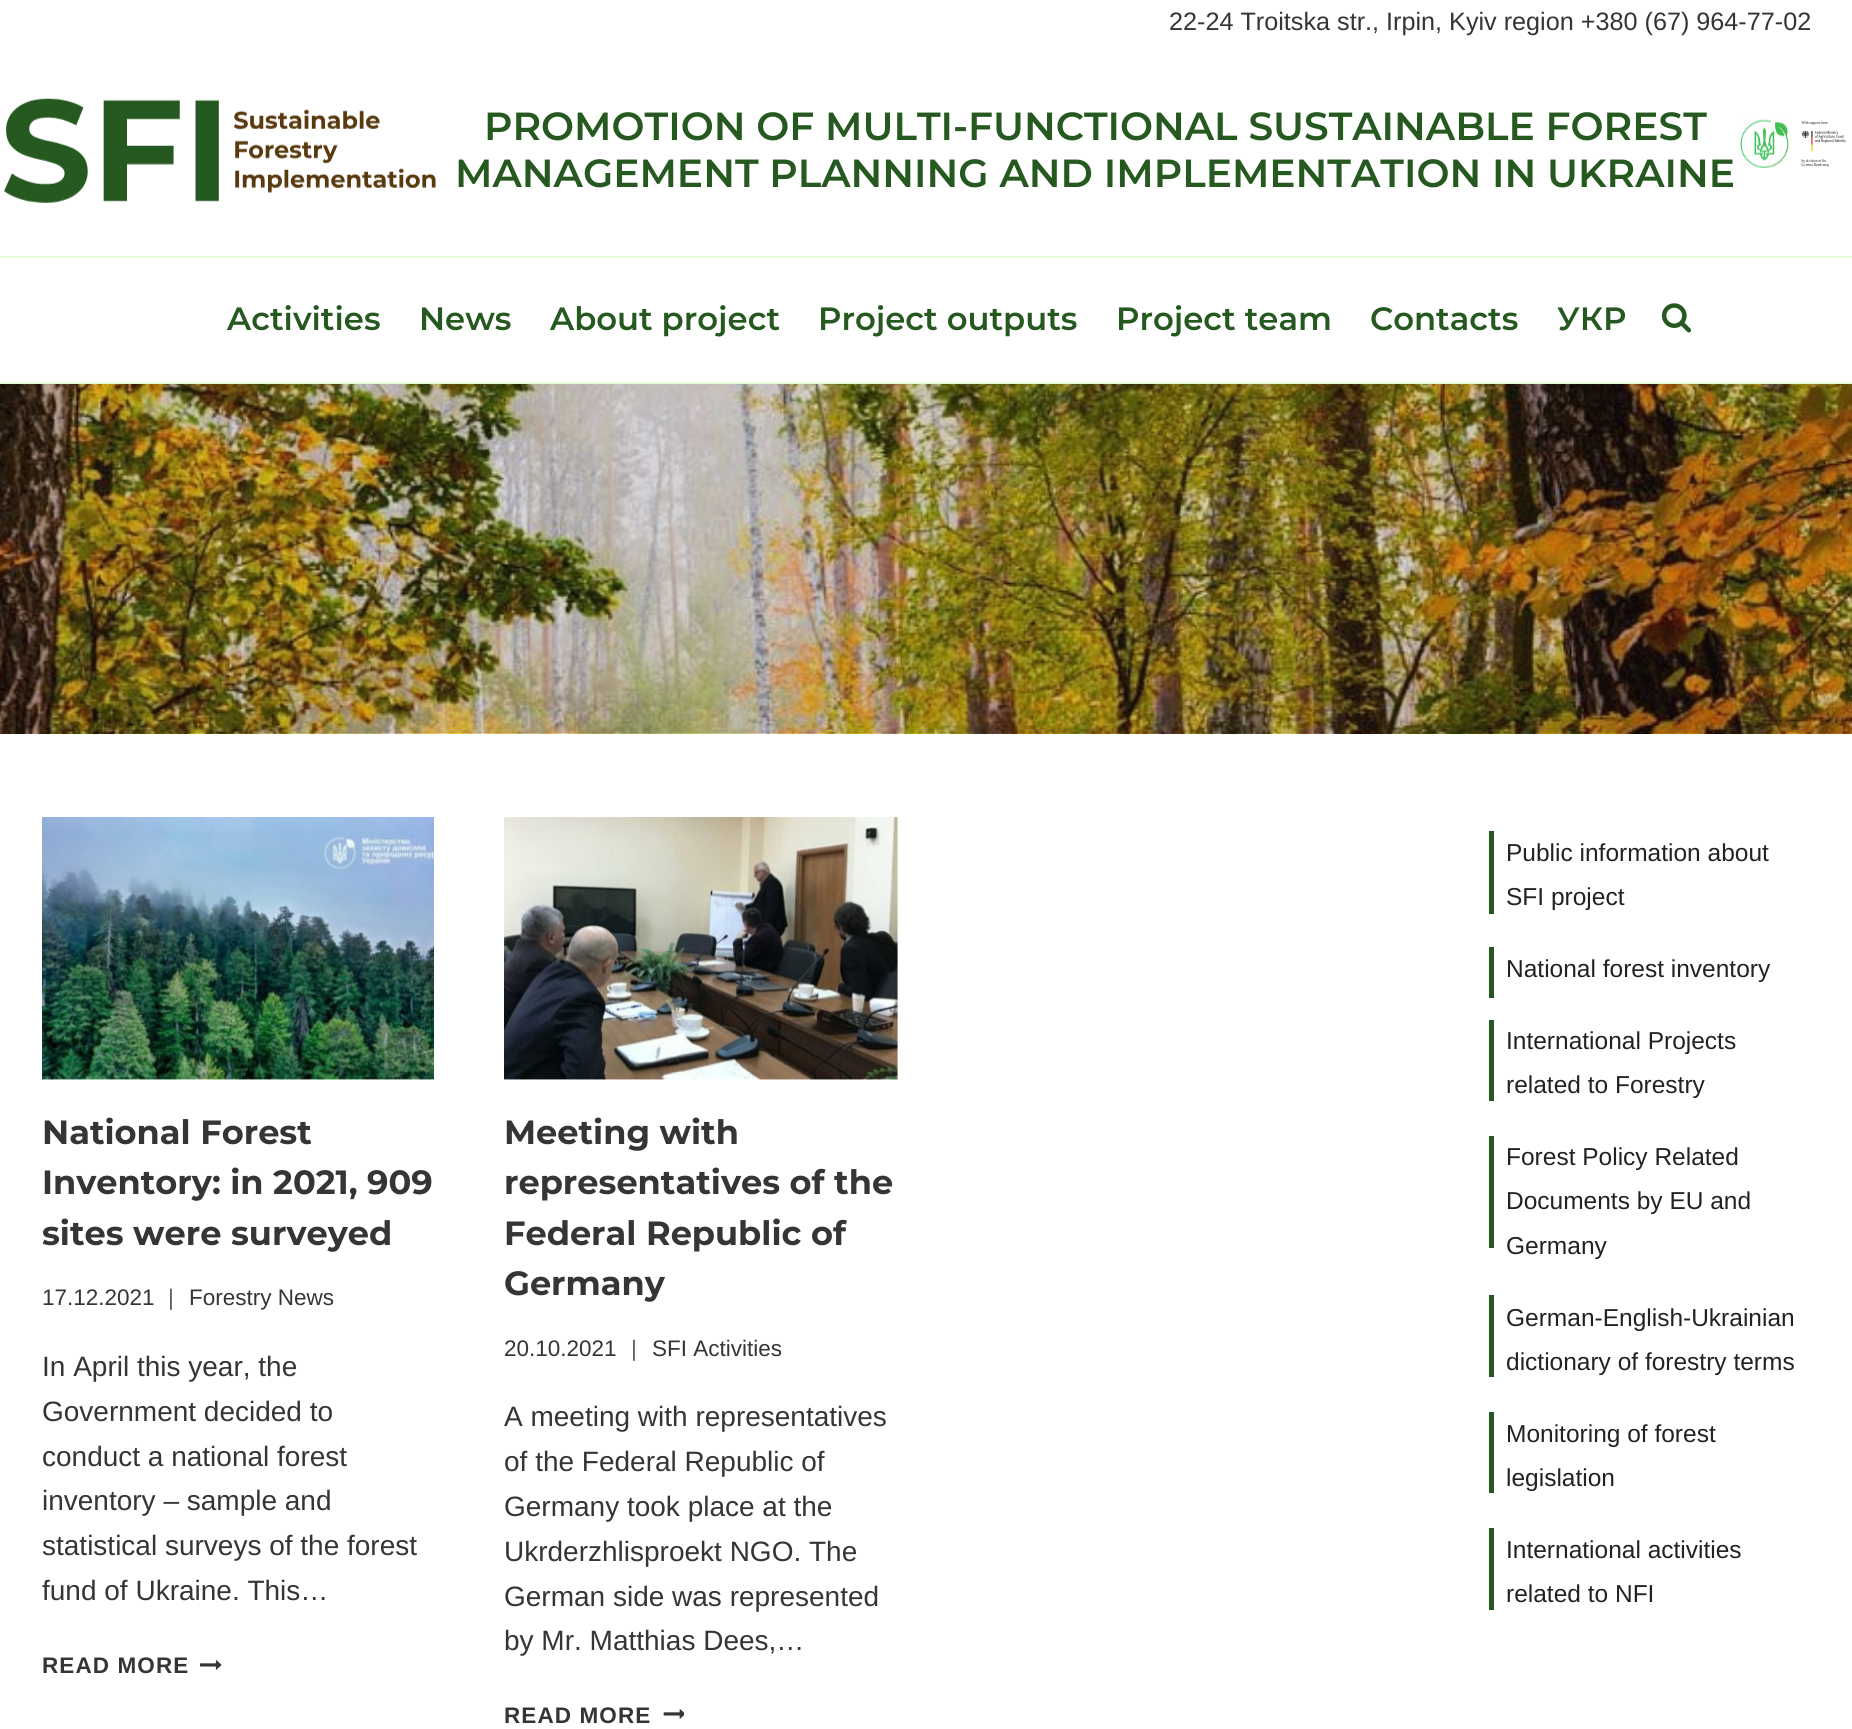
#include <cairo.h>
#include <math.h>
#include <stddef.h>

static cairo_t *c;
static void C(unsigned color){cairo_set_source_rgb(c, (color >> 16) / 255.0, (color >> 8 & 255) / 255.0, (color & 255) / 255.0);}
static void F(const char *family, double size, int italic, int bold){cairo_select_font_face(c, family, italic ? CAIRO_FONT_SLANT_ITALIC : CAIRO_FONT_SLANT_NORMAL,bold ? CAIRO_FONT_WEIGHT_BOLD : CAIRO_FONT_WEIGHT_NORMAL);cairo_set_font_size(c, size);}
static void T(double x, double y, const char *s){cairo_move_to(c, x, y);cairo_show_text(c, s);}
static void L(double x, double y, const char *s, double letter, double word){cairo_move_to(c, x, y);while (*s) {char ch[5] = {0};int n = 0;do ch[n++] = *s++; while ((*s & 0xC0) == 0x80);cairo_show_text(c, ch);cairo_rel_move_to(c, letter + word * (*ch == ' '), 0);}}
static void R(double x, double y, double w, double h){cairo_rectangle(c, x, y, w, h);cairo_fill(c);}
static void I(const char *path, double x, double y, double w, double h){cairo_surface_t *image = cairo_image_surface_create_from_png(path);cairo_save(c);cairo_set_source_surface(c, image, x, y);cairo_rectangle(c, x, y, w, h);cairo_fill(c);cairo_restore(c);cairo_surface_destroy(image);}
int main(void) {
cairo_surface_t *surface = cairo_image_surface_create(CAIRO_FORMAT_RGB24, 1852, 1729);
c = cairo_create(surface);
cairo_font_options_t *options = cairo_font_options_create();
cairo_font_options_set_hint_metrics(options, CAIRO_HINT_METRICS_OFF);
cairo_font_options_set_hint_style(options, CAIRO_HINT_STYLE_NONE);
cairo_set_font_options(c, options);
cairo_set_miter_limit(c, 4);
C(0xffffff);
cairo_paint(c);
F("Liberation Sans",25.2,0,0);
C(0x353535);
T(1169,30,"22-24 Troitska str., Irpin, Kyiv region +380 (67) 964-77-02");
I("1.png",4,98,432,105);
F("Montserrat SemiBold",39.2,0,0);
C(0x25591f);
T(484,140,"PROMOTION OF MULTI-FUNCTIONAL SUSTAINABLE FOREST");
T(455,187,"MANAGEMENT PLANNING AND IMPLEMENTATION IN UKRAINE");
I("2.png",1740,119,49,49);
I("3.png",1801,121,45,46);
C(0xe8fcd4);
R(0,256,1852,2);
R(0,382,1852,2);
F("Montserrat SemiBold",32.25,0,0);
C(0x25591f);
T(227,330,"Activities");
T(419,330,"News");
T(550,330,"About project");
T(818,330,"Project outputs");
T(1116,330,"Project team");
T(1370,330,"Contacts");
T(1557,330,"УКР");
I("4.png",1661,303,31,30);
I("5.png",0,384,1852,350);
I("6.png",42,817,392,263);
F("Montserrat",33.6,0,1);
C(0x353535);
T(42,1144,"National Forest");
T(42,1194,"Inventory: in 2021, 909");
T(42,1245,"sites were surveyed");
F("Liberation Sans",22.5,0,0);
T(42,1305,"17.12.2021");
C(0x5d5d5d);
T(168,1305,"|");
C(0x353535);
T(189,1305,"Forestry News");
F("Liberation Sans",28,0,0);
T(42,1376,"In April this year, the");
T(42,1421,"Government decided to");
T(42,1466,"conduct a national forest");
T(42,1510,"inventory – sample and");
T(42,1555,"statistical surveys of the forest");
T(42,1600,"fund of Ukraine. This…");
F("Liberation Sans",22.5,0,1);
L(42,1673,"READ MORE",1.1,0);
I("7.png",200,1660,22,10);
I("8.png",504,817,394,263);
F("Montserrat",33.6,0,1);
T(504,1144,"Meeting with");
T(504,1194,"representatives of the");
T(504,1245,"Federal Republic of");
T(504,1295,"Germany");
F("Liberation Sans",22.5,0,0);
T(504,1356,"20.10.2021");
C(0x5d5d5d);
T(631,1356,"|");
C(0x353535);
T(652,1356,"SFI Activities");
F("Liberation Sans",28,0,0);
T(504,1426,"A meeting with representatives");
T(504,1471,"of the Federal Republic of");
T(504,1516,"Germany took place at the");
T(504,1561,"Ukrderzhlisproekt NGO. The");
T(504,1606,"German side was represented");
T(504,1650,"by Mr. Matthias Dees,…");
F("Liberation Sans",22.5,0,1);
L(504,1723,"READ MORE",1.1,0);
I("9.png",663,1709,21,10);
C(0x25591f);
R(1489,831,5,83);
F("Liberation Sans",24.5,0,0);
C(0x222222);
T(1506,861,"Public information about");
T(1506,905,"SFI project");
C(0x25591f);
R(1489,947,5,51);
C(0x222222);
T(1506,977,"National forest inventory");
C(0x25591f);
R(1489,1020,5,81);
C(0x222222);
T(1506,1049,"International Projects");
T(1506,1093,"related to Forestry");
C(0x25591f);
R(1489,1136,5,112);
C(0x222222);
T(1506,1165,"Forest Policy Related");
T(1506,1209,"Documents by EU and");
T(1506,1254,"Germany");
C(0x25591f);
R(1489,1295,5,82);
C(0x222222);
T(1506,1326,"German-English-Ukrainian");
T(1506,1370,"dictionary of forestry terms");
C(0x25591f);
R(1489,1412,5,81);
C(0x222222);
T(1506,1442,"Monitoring of forest");
T(1506,1486,"legislation");
C(0x25591f);
R(1489,1528,5,82);
C(0x222222);
T(1506,1558,"International activities");
T(1506,1602,"related to NFI");
cairo_surface_write_to_png(surface, "o.png");
cairo_font_options_destroy(options);
cairo_destroy(c);
cairo_surface_destroy(surface);
return 0;
}
